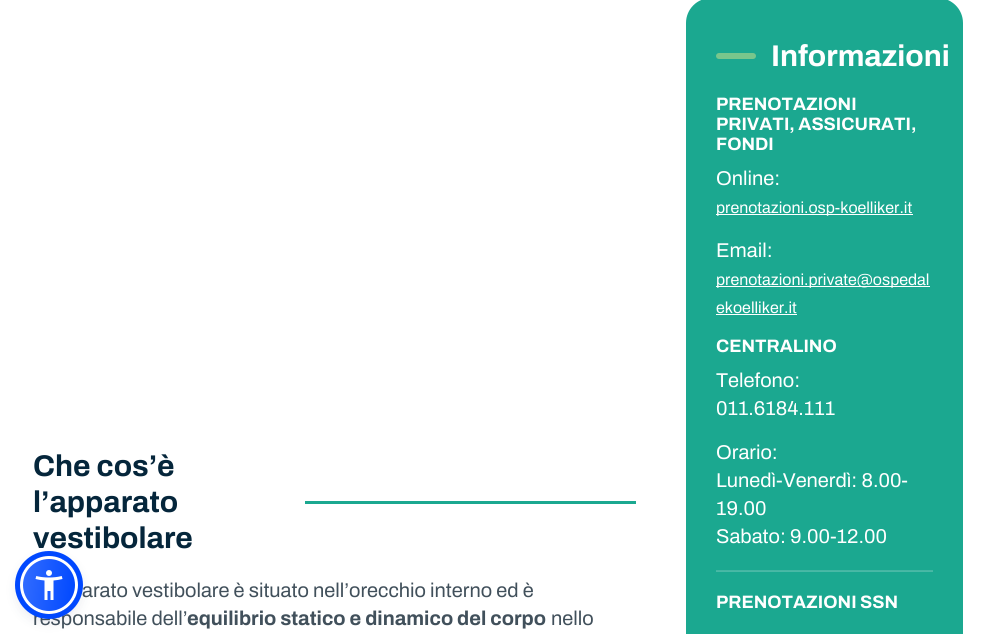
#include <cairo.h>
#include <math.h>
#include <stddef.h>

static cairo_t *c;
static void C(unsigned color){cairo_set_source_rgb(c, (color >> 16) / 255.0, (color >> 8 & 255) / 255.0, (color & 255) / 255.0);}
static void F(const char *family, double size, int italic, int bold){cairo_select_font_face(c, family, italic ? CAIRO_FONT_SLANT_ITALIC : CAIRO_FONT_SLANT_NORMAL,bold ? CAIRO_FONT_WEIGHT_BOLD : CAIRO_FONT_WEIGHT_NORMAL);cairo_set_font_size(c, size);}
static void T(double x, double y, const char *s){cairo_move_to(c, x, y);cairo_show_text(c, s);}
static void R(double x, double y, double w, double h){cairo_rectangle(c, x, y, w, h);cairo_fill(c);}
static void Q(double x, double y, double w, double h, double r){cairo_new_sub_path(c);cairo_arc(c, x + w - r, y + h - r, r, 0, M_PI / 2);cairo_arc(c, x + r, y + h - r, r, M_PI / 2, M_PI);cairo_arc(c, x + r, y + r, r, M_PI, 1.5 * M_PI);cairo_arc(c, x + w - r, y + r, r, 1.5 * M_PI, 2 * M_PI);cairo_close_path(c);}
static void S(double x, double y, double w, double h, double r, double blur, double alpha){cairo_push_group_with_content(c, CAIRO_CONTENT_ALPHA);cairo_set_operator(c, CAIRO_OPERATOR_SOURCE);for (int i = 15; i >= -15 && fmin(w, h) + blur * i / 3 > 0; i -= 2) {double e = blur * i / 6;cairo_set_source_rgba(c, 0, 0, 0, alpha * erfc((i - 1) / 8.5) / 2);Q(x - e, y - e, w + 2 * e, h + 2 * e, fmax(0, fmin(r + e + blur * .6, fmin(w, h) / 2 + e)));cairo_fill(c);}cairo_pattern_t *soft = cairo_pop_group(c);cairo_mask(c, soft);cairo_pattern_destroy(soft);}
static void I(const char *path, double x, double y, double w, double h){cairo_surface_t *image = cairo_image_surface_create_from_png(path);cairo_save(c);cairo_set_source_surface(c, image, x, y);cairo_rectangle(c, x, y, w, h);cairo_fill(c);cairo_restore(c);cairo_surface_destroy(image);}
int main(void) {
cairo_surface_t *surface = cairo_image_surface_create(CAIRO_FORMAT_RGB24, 996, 634);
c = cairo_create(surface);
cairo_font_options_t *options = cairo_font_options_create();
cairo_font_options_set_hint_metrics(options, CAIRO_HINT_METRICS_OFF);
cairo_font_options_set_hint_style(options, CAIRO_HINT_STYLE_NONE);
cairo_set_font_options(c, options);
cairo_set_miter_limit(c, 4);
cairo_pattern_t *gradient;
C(0xffffff);
cairo_paint(c);
F("Archivo",30,0,1);
C(0x05263b);
T(33,476,"Che cos’è");
T(33,512,"l’apparato");
C(0x1ba890);
R(305,501,331,3);
C(0x05263b);
T(33,548,"vestibolare");
F("Archivo",20,0,0);
C(0x41505b);
T(82,597,"arato vestibolare è situato nell’orecchio interno ed è");
T(33,625,"responsabile dell’");
F("Archivo",20,0,1);
T(187,625,"equilibrio statico e dinamico del corpo");
F("Archivo",20,0,0);
T(551,625,"nello");
C(0x1ba890);
Q(686,-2,277,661,25);
cairo_fill(c);
C(0x78c68c);
Q(716,53,40,6,3);
cairo_fill(c);
F("Archivo",30,0,1);
C(0xffffff);
T(771,66,"Informazioni");
F("Archivo",18,0,1);
T(716,110,"PRENOTAZIONI");
T(716,130,"PRIVATI, ASSICURATI,");
T(716,150,"FONDI");
F("Archivo",20,0,0);
T(716,185,"Online:");
R(716,214,197,1);
F("Archivo",16,0,0);
T(716,213,"prenotazioni.osp-koelliker.it");
F("Archivo",20,0,0);
T(716,257,"Email:");
R(716,286,214,1);
F("Archivo",16,0,0);
T(716,285,"prenotazioni.private@ospedal");
T(716,313,"ekoelliker.it");
R(716,314,81,1);
F("Archivo",18,0,1);
T(716,352,"CENTRALINO");
F("Archivo",20,0,0);
T(716,387,"Telefono:");
T(716,415,"011.6184.111");
T(716,459,"Orario:");
T(716,487,"Lunedì-Venerdì: 8.00-");
T(716,515,"19.00");
T(716,543,"Sabato: 9.00-12.00");
C(0x49b9a6);
R(716,571,217,1);
C(0x45b6a3);
R(716,570,217,1);
F("Archivo",18,0,1);
C(0xffffff);
T(716,608,"PRENOTAZIONI SSN");
C(0x5d6494);
S(20,558,58,58,29,2,.2);
C(0x252c61);
S(20,561,58,58,29,7.5,.15);
cairo_save(c);
Q(20,556,58,58,29);
cairo_clip(c);
gradient = cairo_pattern_create_linear(21,582,77,588);
cairo_pattern_add_color_stop_rgba(gradient,0,0.196,0.424,1,1);
cairo_pattern_add_color_stop_rgba(gradient,1,0,0.282,1,1);
cairo_set_source(c,gradient);
cairo_pattern_destroy(gradient);
R(23,559,52,52);
cairo_restore(c);
cairo_arc(c,49,585,27.5,0,2 * M_PI);
C(0xffffff);
cairo_set_line_width(c,3);
cairo_stroke(c);
cairo_arc(c,49,585,31.5,0,2 * M_PI);
C(0x0048ff);
cairo_set_line_width(c,5);
cairo_stroke(c);
I("1.png",35,570,28,30);
cairo_surface_write_to_png(surface, "o.png");
cairo_font_options_destroy(options);
cairo_destroy(c);
cairo_surface_destroy(surface);
return 0;
}
